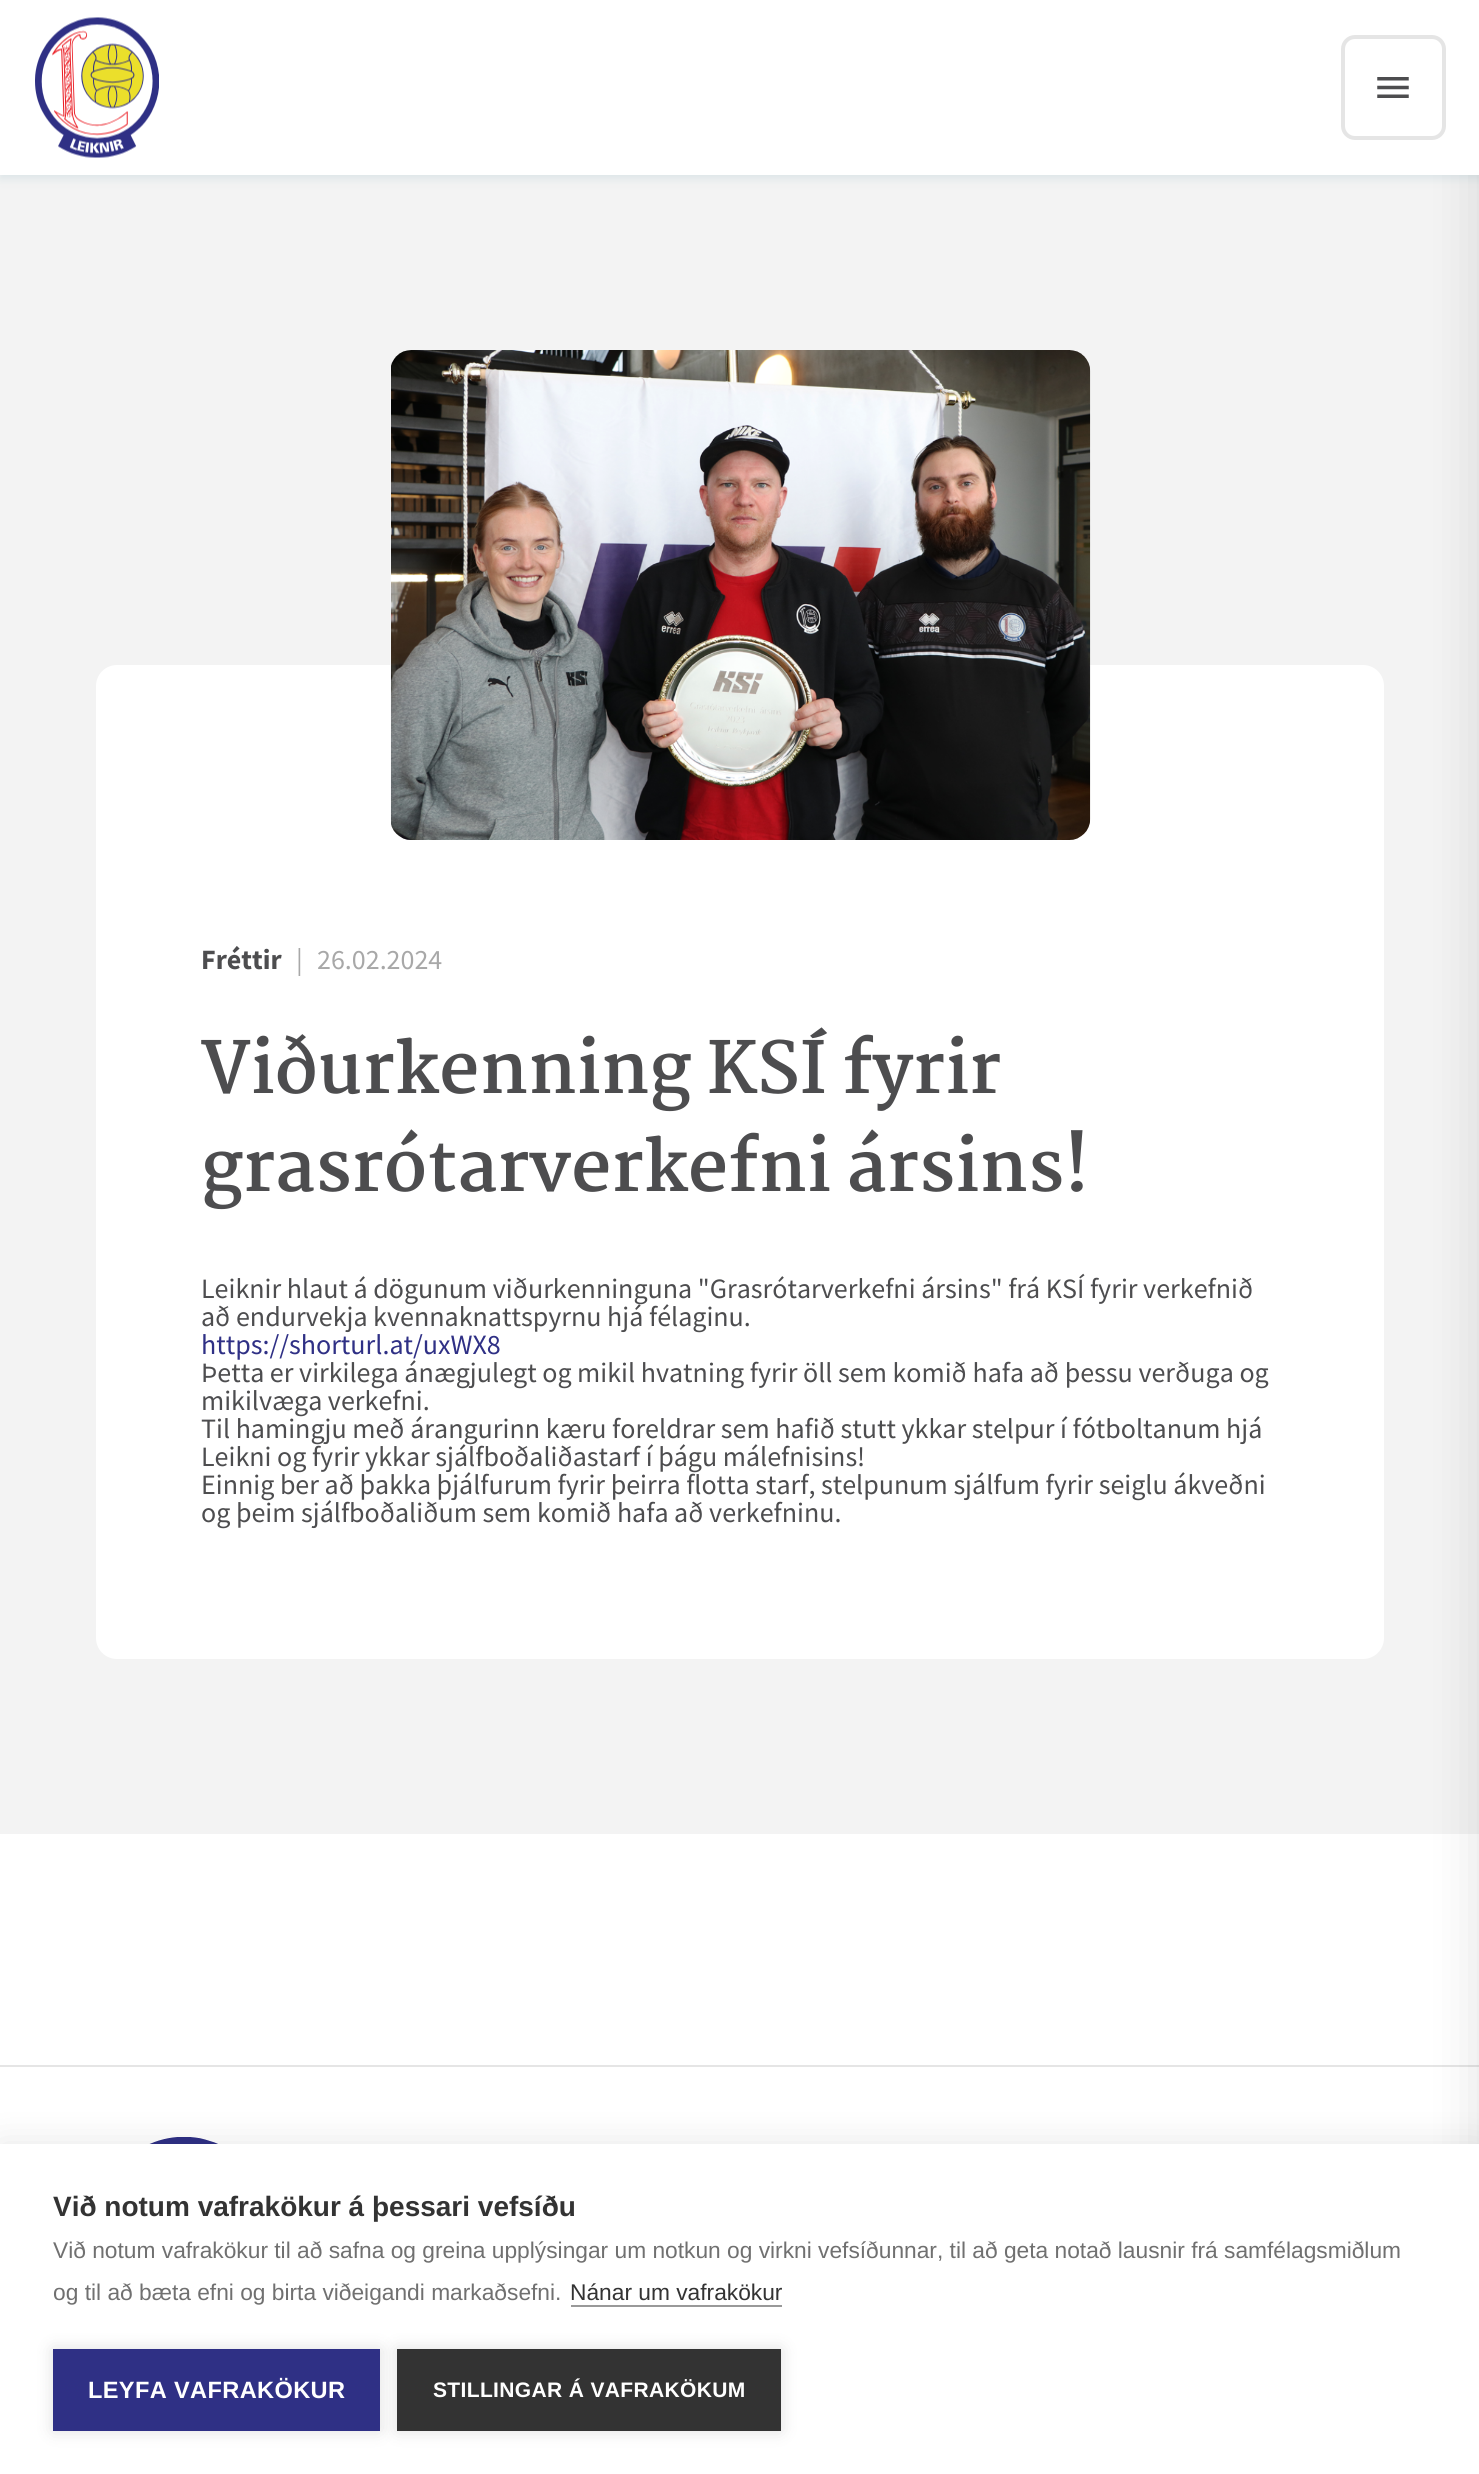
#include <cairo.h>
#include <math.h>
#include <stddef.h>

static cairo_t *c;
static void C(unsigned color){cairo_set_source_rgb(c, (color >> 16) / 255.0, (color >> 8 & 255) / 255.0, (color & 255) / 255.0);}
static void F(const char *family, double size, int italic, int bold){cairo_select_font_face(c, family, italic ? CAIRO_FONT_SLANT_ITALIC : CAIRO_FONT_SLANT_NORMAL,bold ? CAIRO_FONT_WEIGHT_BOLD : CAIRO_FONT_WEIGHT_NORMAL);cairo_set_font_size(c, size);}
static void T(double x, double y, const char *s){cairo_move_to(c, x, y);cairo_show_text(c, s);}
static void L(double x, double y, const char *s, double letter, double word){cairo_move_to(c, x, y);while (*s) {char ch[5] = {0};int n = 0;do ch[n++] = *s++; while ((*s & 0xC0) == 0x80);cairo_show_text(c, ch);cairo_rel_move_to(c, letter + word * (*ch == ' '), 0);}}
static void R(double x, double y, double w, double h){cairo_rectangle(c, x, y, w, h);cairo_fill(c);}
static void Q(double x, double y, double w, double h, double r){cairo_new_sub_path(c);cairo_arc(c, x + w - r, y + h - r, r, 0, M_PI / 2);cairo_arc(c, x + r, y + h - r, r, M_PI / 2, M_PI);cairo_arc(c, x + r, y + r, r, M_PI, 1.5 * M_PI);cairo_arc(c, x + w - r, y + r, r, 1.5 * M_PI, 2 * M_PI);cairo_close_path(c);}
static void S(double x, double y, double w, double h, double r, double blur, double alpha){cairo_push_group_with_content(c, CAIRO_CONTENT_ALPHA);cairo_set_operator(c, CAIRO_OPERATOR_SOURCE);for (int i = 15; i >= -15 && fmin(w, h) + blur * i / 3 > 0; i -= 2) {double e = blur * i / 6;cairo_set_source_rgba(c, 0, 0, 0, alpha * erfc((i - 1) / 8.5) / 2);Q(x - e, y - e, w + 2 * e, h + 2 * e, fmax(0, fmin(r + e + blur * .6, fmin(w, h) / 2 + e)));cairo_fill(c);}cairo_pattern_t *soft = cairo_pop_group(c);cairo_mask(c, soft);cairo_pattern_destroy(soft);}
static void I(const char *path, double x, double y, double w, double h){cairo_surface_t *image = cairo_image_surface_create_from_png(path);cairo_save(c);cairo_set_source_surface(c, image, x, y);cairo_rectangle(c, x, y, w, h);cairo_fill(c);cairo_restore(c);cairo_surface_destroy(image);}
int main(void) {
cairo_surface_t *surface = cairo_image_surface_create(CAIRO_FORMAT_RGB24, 1479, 2474);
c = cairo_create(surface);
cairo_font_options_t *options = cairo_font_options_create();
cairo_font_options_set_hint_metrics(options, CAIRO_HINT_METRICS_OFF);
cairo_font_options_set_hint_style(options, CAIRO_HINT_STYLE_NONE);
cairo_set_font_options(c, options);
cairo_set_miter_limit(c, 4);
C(0xffffff);
cairo_paint(c);
C(0xf3f3f3);
R(0,175,1479,1659);
C(0xd3e0e3);
S(0,4,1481,175,0,4.5,.7);
C(0xe5e5e5);
R(0,2065,1479,2);
C(0x000000);
S(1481,0,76,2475,0,26,.13);
C(0xffffff);
R(0,0,1479,175);
I("1.png",35,17,124,141);
Q(1343,37,101,101,12);
C(0xe5e5e5);
cairo_set_line_width(c,4);
cairo_stroke(c);
I("2.png",1377,77,32,21);
C(0xffffff);
Q(96,665,1288,994,21);
cairo_fill(c);
I("3.png",390,350,701,490);
F("Source Sans Pro",28,0,1);
C(0x4d4d4f);
T(201,969,"Fréttir");
F("Source Sans Pro",28,0,0);
C(0xa8a8a8);
T(296,969,"|");
T(317,969,"26.02.2024");
F("Martel",70,0,1);
C(0x4d4d4f);
T(201,1093,"Viðurkenning KSÍ fyrir");
T(201,1191,"grasrótarverkefni ársins!");
F("Source Sans Pro",28,0,0);
T(201,1298,"Leiknir hlaut á dögunum viðurkenninguna \"Grasrótarverkefni ársins\" frá KSÍ fyrir verkefnið");
T(201,1326,"að endurvekja kvennaknattspyrnu hjá félaginu.");
C(0x2f3085);
T(201,1354,"https://shorturl.at/uxWX8");
C(0x4d4d4f);
T(201,1382,"Þetta er virkilega ánægjulegt og mikil hvatning fyrir öll sem komið hafa að þessu verðuga og");
T(201,1410,"mikilvæga verkefni.");
T(201,1438,"Til hamingju með árangurinn kæru foreldrar sem hafið stutt ykkar stelpur í fótboltanum hjá");
T(201,1466,"Leikni og fyrir ykkar sjálfboðaliðastarf í þágu málefnisins!");
T(201,1494,"Einnig ber að þakka þjálfurum fyrir þeirra flotta starf, stelpunum sjálfum fyrir seiglu ákveðni");
T(201,1522,"og þeim sjálfboðaliðum sem komið hafa að verkefninu.");
I("4.png",149,2137,69,7);
C(0x000000);
S(0,2144,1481,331,0,17.5,.1);
C(0xffffff);
R(0,2144,1479,330);
F("Liberation Sans",28,0,1);
C(0x333333);
T(53,2216,"Við notum vafrakökur á þessari vefsíðu");
F("Liberation Sans",22.75,0,0);
C(0x707070);
T(53,2258,"Við notum vafrakökur til að safna og greina upplýsingar um notkun og virkni vefsíðunnar, til að geta notað lausnir frá samfélagsmiðlum");
T(53,2300,"og til að bæta efni og birta viðeigandi markaðsefni.");
C(0x333333);
T(570,2300,"Nánar um vafrakökur");
C(0x999999);
R(571,2305,211,2);
C(0x000000);
S(53,2349,327,82,0,9,.12);
C(0x2f3085);
R(53,2349,327,82);
F("Liberation Sans",23.6,0,1);
C(0xffffff);
L(88,2398,"LEYFA VAFRAKÖKUR",.35,0);
C(0x000000);
S(397,2349,384,82,0,9,.12);
C(0x333333);
R(397,2349,384,82);
F("Liberation Sans",21,0,1);
C(0xffffff);
L(433,2397,"STILLINGAR Á VAFRAKÖKUM",.35,0);
cairo_surface_write_to_png(surface, "o.png");
cairo_font_options_destroy(options);
cairo_destroy(c);
cairo_surface_destroy(surface);
return 0;
}
